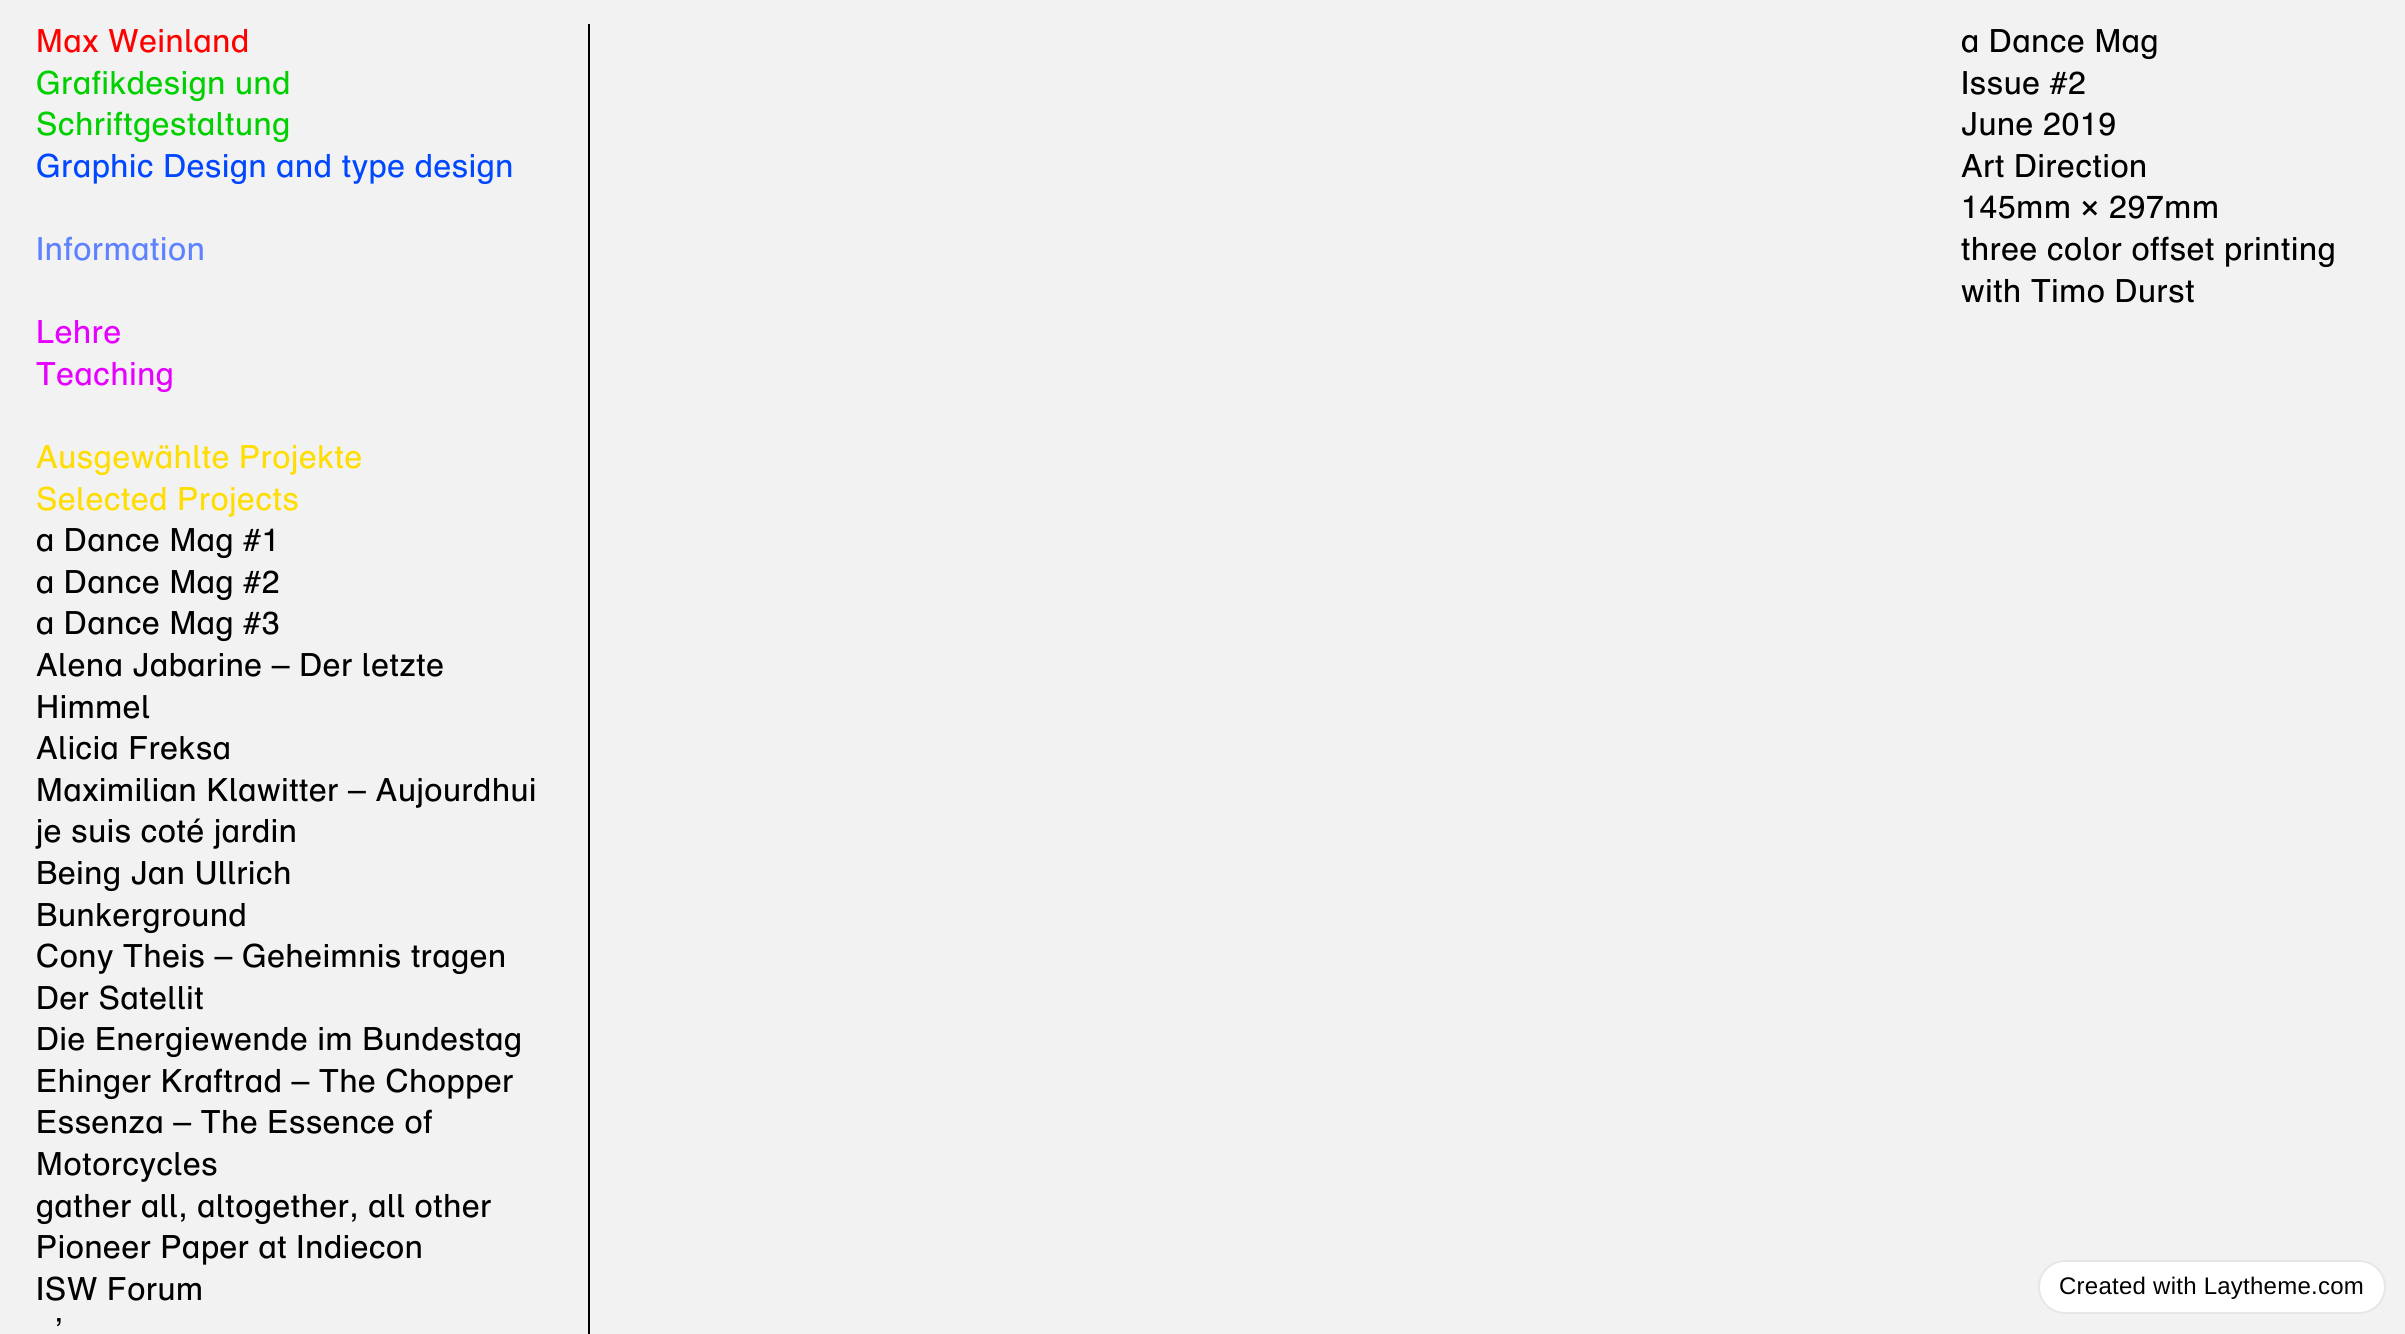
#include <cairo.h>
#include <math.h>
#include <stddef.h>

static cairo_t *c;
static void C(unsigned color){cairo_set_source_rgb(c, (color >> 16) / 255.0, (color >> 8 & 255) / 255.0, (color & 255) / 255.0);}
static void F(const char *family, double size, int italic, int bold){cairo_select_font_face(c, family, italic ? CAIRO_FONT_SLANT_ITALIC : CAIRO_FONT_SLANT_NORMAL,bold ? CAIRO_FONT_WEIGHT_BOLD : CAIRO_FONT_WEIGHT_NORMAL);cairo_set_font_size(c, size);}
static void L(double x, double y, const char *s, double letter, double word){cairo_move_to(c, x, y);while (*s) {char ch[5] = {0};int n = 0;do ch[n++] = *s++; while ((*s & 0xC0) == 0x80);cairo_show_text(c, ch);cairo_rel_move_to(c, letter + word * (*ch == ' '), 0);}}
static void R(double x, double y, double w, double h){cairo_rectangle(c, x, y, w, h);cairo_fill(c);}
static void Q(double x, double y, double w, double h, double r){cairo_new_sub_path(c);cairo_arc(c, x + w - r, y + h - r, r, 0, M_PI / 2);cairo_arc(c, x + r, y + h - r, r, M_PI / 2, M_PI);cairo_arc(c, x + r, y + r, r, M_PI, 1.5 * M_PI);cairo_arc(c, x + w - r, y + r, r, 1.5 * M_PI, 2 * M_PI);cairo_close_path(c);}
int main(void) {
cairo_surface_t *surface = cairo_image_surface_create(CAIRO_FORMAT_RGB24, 2405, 1334);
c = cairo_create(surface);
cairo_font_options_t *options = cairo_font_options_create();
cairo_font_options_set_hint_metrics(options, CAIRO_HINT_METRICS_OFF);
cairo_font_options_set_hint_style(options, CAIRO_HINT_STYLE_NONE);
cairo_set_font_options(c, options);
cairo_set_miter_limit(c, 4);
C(0xf2f2f2);
cairo_paint(c);
F("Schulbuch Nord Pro",32,0,0);
C(0xff0000);
L(36,52,"Max Weinland",.65,0);
C(0x00d000);
L(36,94,"Grafikdesign und",.65,0);
L(36,135,"Schriftgestaltung",.65,0);
C(0x0047ff);
L(36,177,"Graphic Design and type design",.65,0);
C(0x5e81ff);
L(36,260,"Information",.65,0);
C(0xe600ff);
L(36,343,"Lehre",.65,0);
L(36,385,"Teaching",.65,0);
C(0xffdd00);
L(36,468,"Ausgewählte Projekte",.65,0);
L(36,510,"Selected Projects",.65,0);
C(0x000000);
L(36,551,"a Dance Mag #1",.65,0);
L(36,593,"a Dance Mag #2",.65,0);
L(36,634,"a Dance Mag #3",.65,0);
L(36,676,"Alena Jabarine – Der letzte",.65,0);
L(36,718,"Himmel",.65,0);
L(36,759,"Alicia Freksa",.65,0);
L(36,801,"Maximilian Klawitter – Aujourdhui",.65,0);
L(36,842,"je suis coté jardin",.65,0);
L(36,884,"Being Jan Ullrich",.65,0);
L(36,926,"Bunkerground",.65,0);
L(36,967,"Cony Theis – Geheimnis tragen",.65,0);
L(36,1009,"Der Satellit",.65,0);
L(36,1050,"Die Energiewende im Bundestag",.65,0);
L(36,1092,"Ehinger Kraftrad – The Chopper",.65,0);
L(36,1133,"Essenza – The Essence of",.65,0);
L(36,1175,"Motorcycles",.65,0);
L(36,1217,"gather all, altogether, all other",.65,0);
L(36,1258,"Pioneer Paper at Indiecon",.65,0);
L(36,1300,"ISW Forum",.65,0);
L(55,1341,"’",.65,0);
R(588,24,2,1310);
L(1961,52,"a Dance Mag",.65,0);
L(1961,94,"Issue #2",.65,0);
L(1961,135,"June 2019",.65,0);
L(1961,177,"Art Direction",.65,0);
L(1961,218,"145mm × 297mm",.65,0);
L(1961,260,"three color offset printing",.65,0);
L(1961,302,"with Timo Durst",.65,0);
C(0xffffff);
Q(2039,1261,346,52,26);
cairo_fill_preserve(c);
C(0xe6e6e6);
cairo_stroke(c);
F("Liberation Sans",24,0,0);
C(0x000000);
L(2059,1294,"Created with Laytheme.com",.25,0);
cairo_surface_write_to_png(surface, "o.png");
cairo_font_options_destroy(options);
cairo_destroy(c);
cairo_surface_destroy(surface);
return 0;
}
